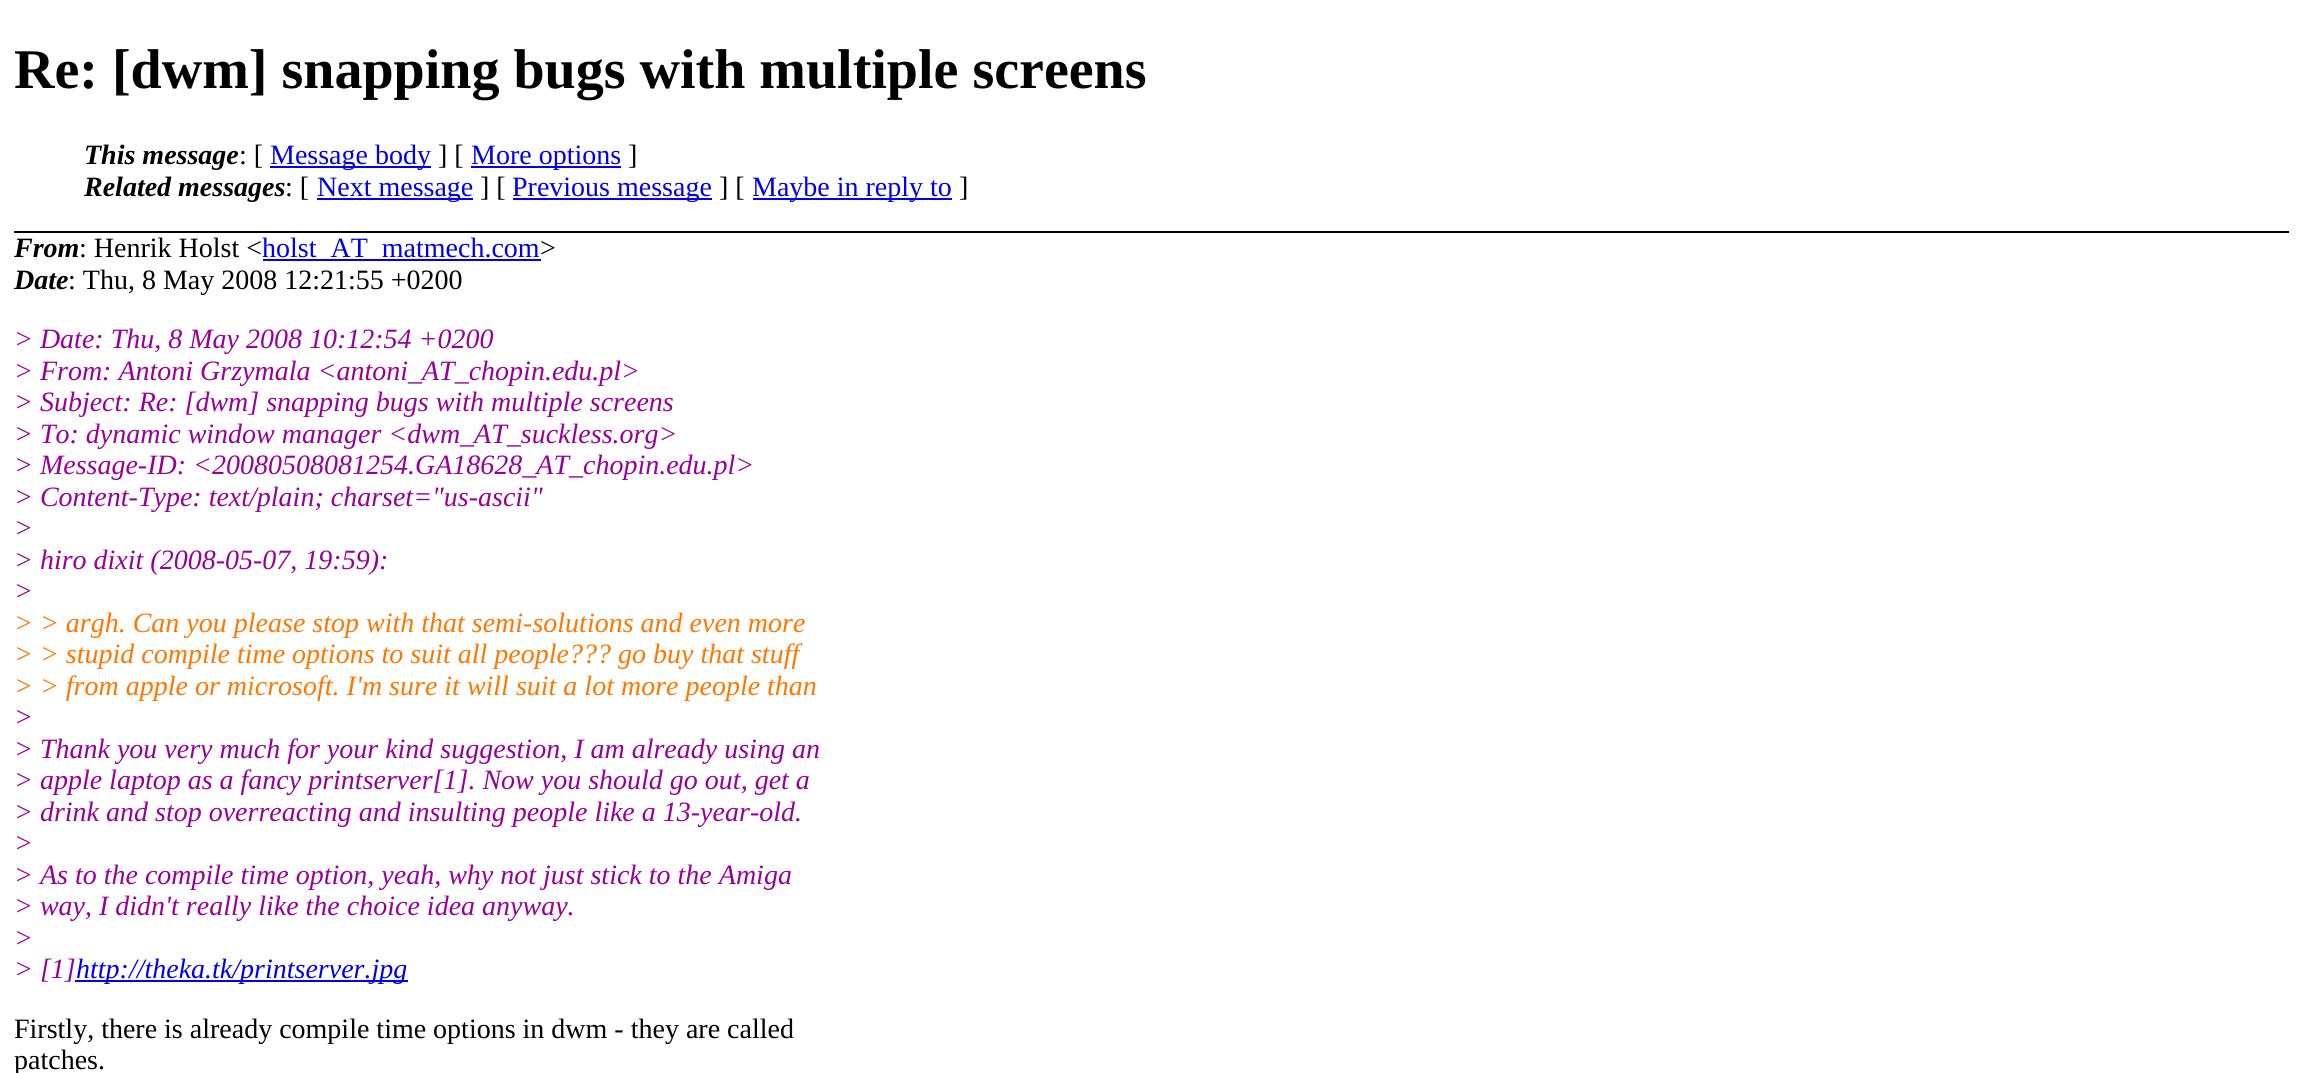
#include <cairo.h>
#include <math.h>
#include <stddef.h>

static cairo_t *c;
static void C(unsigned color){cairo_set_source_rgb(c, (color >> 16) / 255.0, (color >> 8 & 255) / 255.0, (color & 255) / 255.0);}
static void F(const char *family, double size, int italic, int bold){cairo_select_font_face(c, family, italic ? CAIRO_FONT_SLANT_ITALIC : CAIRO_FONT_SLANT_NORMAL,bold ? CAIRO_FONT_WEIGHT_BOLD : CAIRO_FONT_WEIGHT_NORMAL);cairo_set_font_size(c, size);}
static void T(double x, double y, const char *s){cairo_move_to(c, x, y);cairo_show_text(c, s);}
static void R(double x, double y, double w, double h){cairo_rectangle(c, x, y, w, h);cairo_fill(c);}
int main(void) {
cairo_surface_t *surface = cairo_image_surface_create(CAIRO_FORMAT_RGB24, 2303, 1073);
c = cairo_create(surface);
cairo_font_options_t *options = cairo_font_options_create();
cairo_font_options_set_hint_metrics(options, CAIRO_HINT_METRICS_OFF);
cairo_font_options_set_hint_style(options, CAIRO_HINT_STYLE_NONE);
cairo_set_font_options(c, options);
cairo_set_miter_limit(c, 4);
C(0xffffff);
cairo_paint(c);
C(0x000000);
R(14,231,2275,2);
F("Liberation Serif",56,0,1);
T(14,88,"Re: [dwm] snapping bugs with multiple screens");
F("Liberation Serif",28,1,1);
T(84,164,"This message");
F("Liberation Serif",28,0,0);
T(239,164,": [");
C(0x0000ee);
R(270,166,161,2);
T(270,164,"Message body");
C(0x000000);
T(438,164,"] [");
C(0x0000ee);
R(471,166,150,2);
T(471,164,"More options");
C(0x000000);
T(628,164,"]");
F("Liberation Serif",28,1,1);
T(84,196,"Related messages");
F("Liberation Serif",28,0,0);
T(285,196,": [");
C(0x0000ee);
R(317,198,156,2);
T(317,196,"Next message");
C(0x000000);
T(480,196,"] [");
C(0x0000ee);
R(513,198,199,2);
T(512,196,"Previous message");
C(0x000000);
T(719,196,"] [");
C(0x0000ee);
R(753,198,199,2);
T(752,196,"Maybe in reply to");
C(0x000000);
T(959,196,"]");
F("Liberation Serif",28,1,1);
T(14,257,"From");
F("Liberation Serif",28,0,0);
T(79,257,": Henrik Holst <");
C(0x0000ee);
R(263,259,278,2);
T(262,257,"holst_AT_matmech.com");
C(0x000000);
T(540,257,">");
F("Liberation Serif",28,1,1);
T(14,289,"Date");
F("Liberation Serif",28,0,0);
T(68,289,": Thu, 8 May 2008 12:21:55 +0200");
F("Liberation Serif",28,1,0);
C(0x990099);
T(14,348,"> Date: Thu, 8 May 2008 10:12:54 +0200");
T(14,380,"> From: Antoni Grzymala <antoni_AT_chopin.edu.pl>");
T(14,411,"> Subject: Re: [dwm] snapping bugs with multiple screens");
T(14,443,"> To: dynamic window manager <dwm_AT_suckless.org>");
T(14,474,"> Message-ID: <20080508081254.GA18628_AT_chopin.edu.pl>");
T(14,506,"> Content-Type: text/plain; charset=\"us-ascii\"");
T(14,537,">");
T(14,569,"> hiro dixit (2008-05-07, 19:59):");
T(14,600,">");
C(0xff7700);
T(14,632,"> > argh. Can you please stop with that semi-solutions and even more");
T(14,663,"> > stupid compile time options to suit all people?\077? go buy that stuff");
T(14,695,"> > from apple or microsoft. I'm sure it will suit a lot more people than");
C(0x990099);
T(14,726,">");
T(14,758,"> Thank you very much for your kind suggestion, I am already using an");
T(14,789,"> apple laptop as a fancy printserver[1]. Now you should go out, get a");
T(14,821,"> drink and stop overreacting and insulting people like a 13-year-old.");
T(14,852,">");
T(14,884,"> As to the compile time option, yeah, why not just stick to the Amiga");
T(14,915,"> way, I didn't really like the choice idea anyway.");
T(14,947,">");
T(14,978,"> [1]");
C(0x0000ee);
R(75,980,333,2);
T(76,978,"http://theka.tk/printserver.jpg");
F("Liberation Serif",28,0,0);
C(0x000000);
T(14,1038,"Firstly, there is already compile time options in dwm - they are called");
T(14,1069,"patches.");
cairo_surface_write_to_png(surface, "o.png");
cairo_font_options_destroy(options);
cairo_destroy(c);
cairo_surface_destroy(surface);
return 0;
}
